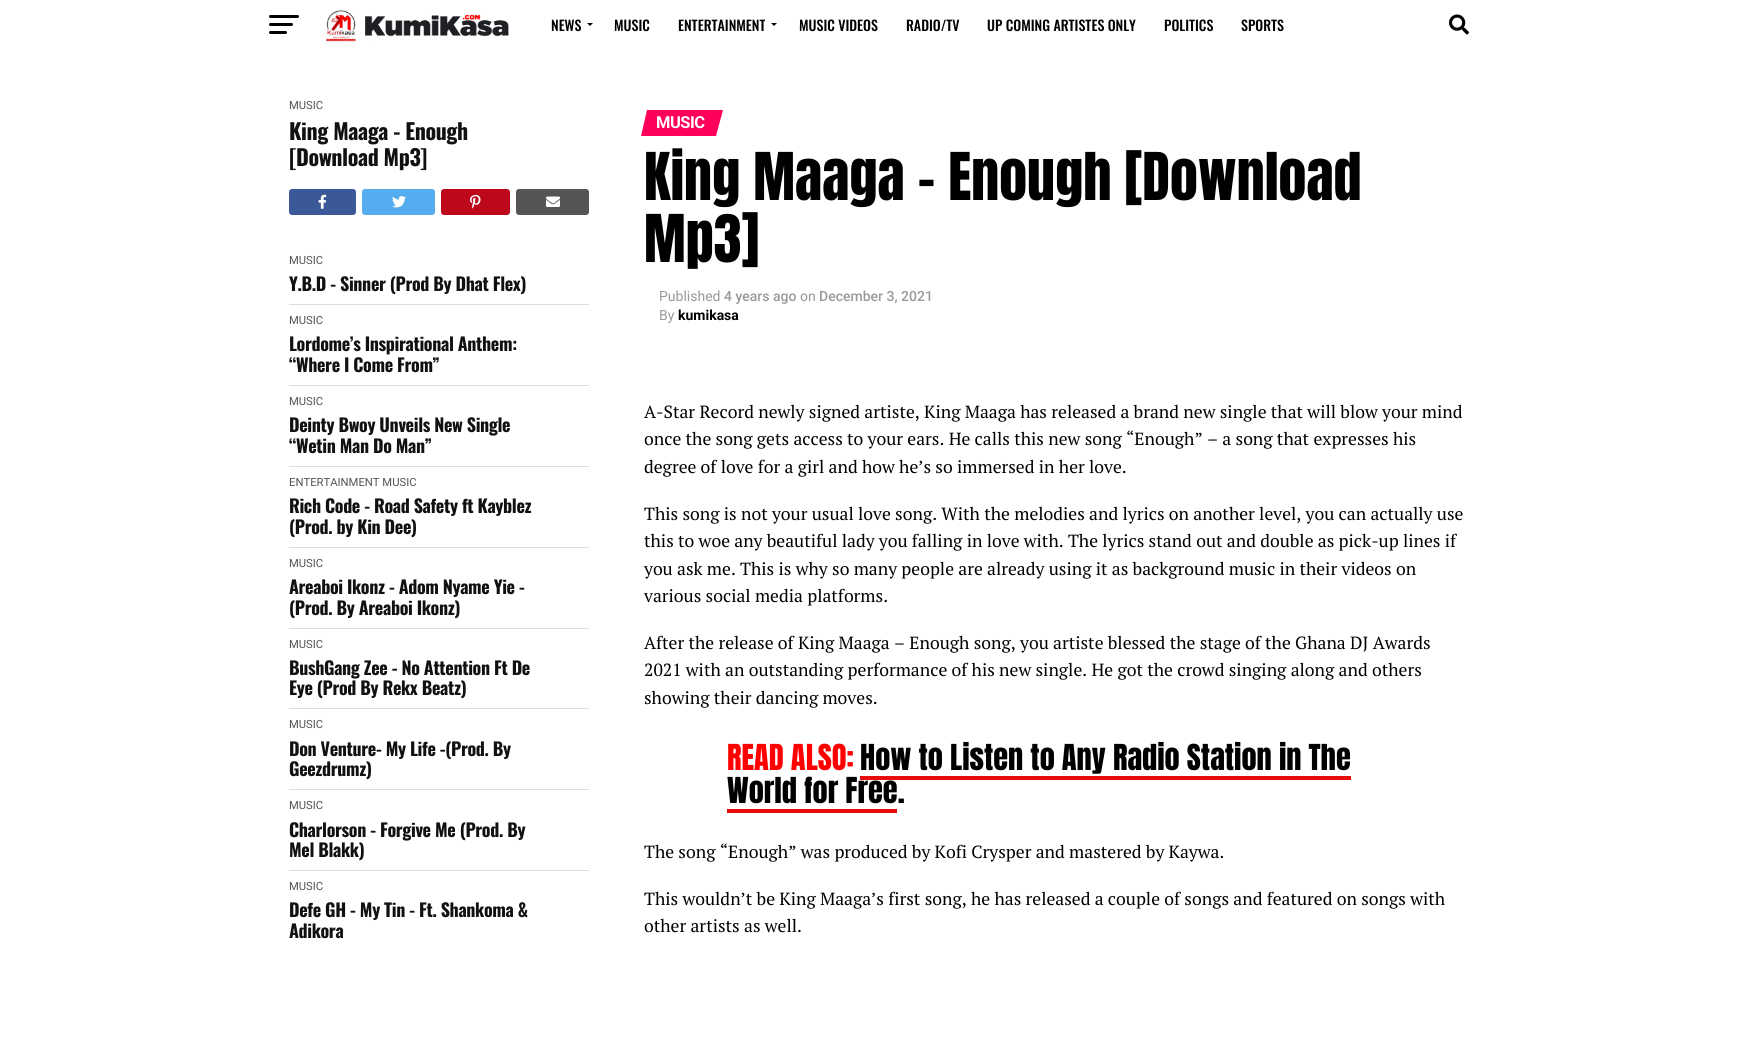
#include <cairo.h>
#include <math.h>
#include <stddef.h>

static cairo_t *c;
static void C(unsigned color){cairo_set_source_rgb(c, (color >> 16) / 255.0, (color >> 8 & 255) / 255.0, (color & 255) / 255.0);}
static void F(const char *family, double size, int italic, int bold){cairo_select_font_face(c, family, italic ? CAIRO_FONT_SLANT_ITALIC : CAIRO_FONT_SLANT_NORMAL,bold ? CAIRO_FONT_WEIGHT_BOLD : CAIRO_FONT_WEIGHT_NORMAL);cairo_set_font_size(c, size);}
static void T(double x, double y, const char *s){cairo_move_to(c, x, y);cairo_show_text(c, s);}
static void L(double x, double y, const char *s, double letter, double word){cairo_move_to(c, x, y);while (*s) {char ch[5] = {0};int n = 0;do ch[n++] = *s++; while ((*s & 0xC0) == 0x80);cairo_show_text(c, ch);cairo_rel_move_to(c, letter + word * (*ch == ' '), 0);}}
static void R(double x, double y, double w, double h){cairo_rectangle(c, x, y, w, h);cairo_fill(c);}
static void Q(double x, double y, double w, double h, double r){cairo_new_sub_path(c);cairo_arc(c, x + w - r, y + h - r, r, 0, M_PI / 2);cairo_arc(c, x + r, y + h - r, r, M_PI / 2, M_PI);cairo_arc(c, x + r, y + r, r, M_PI, 1.5 * M_PI);cairo_arc(c, x + w - r, y + r, r, 1.5 * M_PI, 2 * M_PI);cairo_close_path(c);}
static void I(const char *path, double x, double y, double w, double h){cairo_surface_t *image = cairo_image_surface_create_from_png(path);cairo_save(c);cairo_set_source_surface(c, image, x, y);cairo_rectangle(c, x, y, w, h);cairo_fill(c);cairo_restore(c);cairo_surface_destroy(image);}
int main(void) {
cairo_surface_t *surface = cairo_image_surface_create(CAIRO_FORMAT_RGB24, 1738, 1037);
c = cairo_create(surface);
cairo_font_options_t *options = cairo_font_options_create();
cairo_font_options_set_hint_metrics(options, CAIRO_HINT_METRICS_OFF);
cairo_font_options_set_hint_style(options, CAIRO_HINT_STYLE_NONE);
cairo_set_font_options(c, options);
cairo_set_miter_limit(c, 4);
C(0xffffff);
cairo_paint(c);
C(0x000000);
Q(269,15,30,3,1.5);
cairo_fill(c);
Q(269,23,24,3,1.5);
cairo_fill(c);
Q(269,31,18,3,1.5);
cairo_fill(c);
I("1.png",325,10,184,32);
F("Oswald Medium",14,0,0);
T(551,31,"NEWS");
cairo_new_path(c);
cairo_move_to(c,587,23);
cairo_line_to(c,593,23);
cairo_line_to(c,590,26);
cairo_close_path(c);
cairo_fill(c);
T(614,31,"MUSIC");
T(678,31,"ENTERTAINMENT");
cairo_new_path(c);
cairo_move_to(c,771,23);
cairo_line_to(c,777,23);
cairo_line_to(c,774,26);
cairo_close_path(c);
cairo_fill(c);
T(799,31,"MUSIC VIDEOS");
T(906,31,"RADIO/TV");
T(987,31,"UP COMING ARTISTES ONLY");
T(1164,31,"POLITICS");
T(1241,31,"SPORTS");
I("2.png",1449,14,20,21);
F("Roboto",11.25,0,0);
C(0x555555);
T(289,109,"MUSIC");
F("Oswald",22,0,1);
C(0x111111);
L(289,140,"King Maaga - Enough",-.4,0);
L(289,166,"[Download Mp3]",-.4,0);
C(0x3b5998);
Q(289,189,67,26,3);
cairo_fill(c);
I("3.png",318,194,9,15);
C(0x55acee);
Q(362,189,73,26,3);
cairo_fill(c);
I("4.png",392,196,14,12);
C(0xbd081c);
Q(441,189,69,26,3);
cairo_fill(c);
I("5.png",470,194,11,15);
C(0x555555);
Q(516,189,73,26,3);
cairo_fill(c);
I("6.png",546,196,14,11);
C(0xdddddd);
R(289,304,300,1);
F("Roboto",11.25,0,0);
C(0x555555);
T(289,264,"MUSIC");
F("Oswald",18,0,1);
C(0x111111);
L(289,291,"Y.B.D - Sinner (Prod By Dhat Flex)",-.35,0);
C(0xdddddd);
R(289,385,300,1);
F("Roboto",11.25,0,0);
C(0x555555);
T(289,324,"MUSIC");
F("Oswald",18,0,1);
C(0x111111);
L(289,351,"Lordome’s Inspirational Anthem:",-.35,0);
L(289,372,"“Where I Come From”",-.35,0);
C(0xdddddd);
R(289,466,300,1);
F("Roboto",11.25,0,0);
C(0x555555);
T(289,405,"MUSIC");
F("Oswald",18,0,1);
C(0x111111);
L(289,432,"Deinty Bwoy Unveils New Single",-.35,0);
L(289,453,"“Wetin Man Do Man”",-.35,0);
C(0xdddddd);
R(289,547,300,1);
F("Roboto",11.25,0,0);
C(0x555555);
T(289,486,"ENTERTAINMENT MUSIC");
F("Oswald",18,0,1);
C(0x111111);
L(289,513,"Rich Code - Road Safety ft Kayblez",-.35,0);
L(289,534,"(Prod. by Kin Dee)",-.35,0);
C(0xdddddd);
R(289,628,300,1);
F("Roboto",11.25,0,0);
C(0x555555);
T(289,567,"MUSIC");
F("Oswald",18,0,1);
C(0x111111);
L(289,594,"Areaboi Ikonz - Adom Nyame Yie -",-.35,0);
L(289,615,"(Prod. By Areaboi Ikonz)",-.35,0);
C(0xdddddd);
R(289,708,300,1);
F("Roboto",11.25,0,0);
C(0x555555);
T(289,648,"MUSIC");
F("Oswald",18,0,1);
C(0x111111);
L(289,675,"BushGang Zee - No Attention Ft De",-.35,0);
L(289,695,"Eye (Prod By Rekx Beatz)",-.35,0);
C(0xdddddd);
R(289,789,300,1);
F("Roboto",11.25,0,0);
C(0x555555);
T(289,728,"MUSIC");
F("Oswald",18,0,1);
C(0x111111);
L(289,756,"Don Venture- My Life -(Prod. By",-.35,0);
L(289,776,"Geezdrumz)",-.35,0);
C(0xdddddd);
R(289,870,300,1);
F("Roboto",11.25,0,0);
C(0x555555);
T(289,809,"MUSIC");
F("Oswald",18,0,1);
C(0x111111);
L(289,837,"Charlorson - Forgive Me (Prod. By",-.35,0);
L(289,857,"Mel Blakk)",-.35,0);
F("Roboto",11.25,0,0);
C(0x555555);
T(289,890,"MUSIC");
F("Oswald",18,0,1);
C(0x111111);
L(289,917,"Defe GH - My Tin - Ft. Shankoma &",-.35,0);
L(289,938,"Adikora",-.35,0);
C(0xff005b);
cairo_new_path(c);
cairo_move_to(c,647,110);
cairo_line_to(c,723,110);
cairo_line_to(c,716,136);
cairo_line_to(c,641,136);
cairo_close_path(c);
cairo_fill(c);
F("Roboto",16.5,0,1);
C(0xffffff);
L(656,128,"MUSIC",-.5,0);
F("Anton",56,0,0);
C(0x000000);
T(644,200,"King Maaga – Enough [Download");
T(644,262,"Mp3]");
F("Roboto",14,0,0);
C(0x999999);
T(659,301,"Published");
F("Roboto Medium",14,0,0);
T(724,301,"4 years ago");
F("Roboto",14,0,0);
T(800,301,"on");
F("Roboto Medium",14,0,0);
T(819,301,"December 3, 2021");
F("Roboto",14,0,0);
T(659,320,"By");
F("Roboto",14,0,1);
C(0x000000);
T(678,320,"kumikasa");
F("PT Serif",17.6,0,0);
T(644,418,"A-Star Record newly signed artiste, King Maaga has released a brand new single that will blow your mind");
T(644,445,"once the song gets access to your ears. He calls this new song “Enough” – a song that expresses his");
T(644,473,"degree of love for a girl and how he’s so immersed in her love.");
T(644,520,"This song is not your usual love song. With the melodies and lyrics on another level, you can actually use");
T(644,547,"this to woe any beautiful lady you falling in love with. The lyrics stand out and double as pick-up lines if");
T(644,575,"you ask me. This is why so many people are already using it as background music in their videos on");
T(644,602,"various social media platforms.");
T(644,649,"After the release of King Maaga – Enough song, you artiste blessed the stage of the Ghana DJ Awards");
T(644,676,"2021 with an outstanding performance of his new single. He got the crowd singing along and others");
T(644,704,"showing their dancing moves.");
F("Anton",30.4,0,0);
C(0xff0000);
T(727,770,"READ ALSO:");
C(0x000000);
T(860,770,"How to Listen to Any Radio Station in The");
C(0xe80b0b);
R(860,776,491,4);
C(0x000000);
T(727,803,"World for Free.");
C(0xe80b0b);
R(727,809,170,4);
F("PT Serif",17.6,0,0);
C(0x000000);
T(644,858,"The song “Enough” was produced by Kofi Crysper and mastered by Kaywa.");
T(644,905,"This wouldn’t be King Maaga’s first song, he has released a couple of songs and featured on songs with");
T(644,932,"other artists as well.");
cairo_surface_write_to_png(surface, "o.png");
cairo_font_options_destroy(options);
cairo_destroy(c);
cairo_surface_destroy(surface);
return 0;
}
